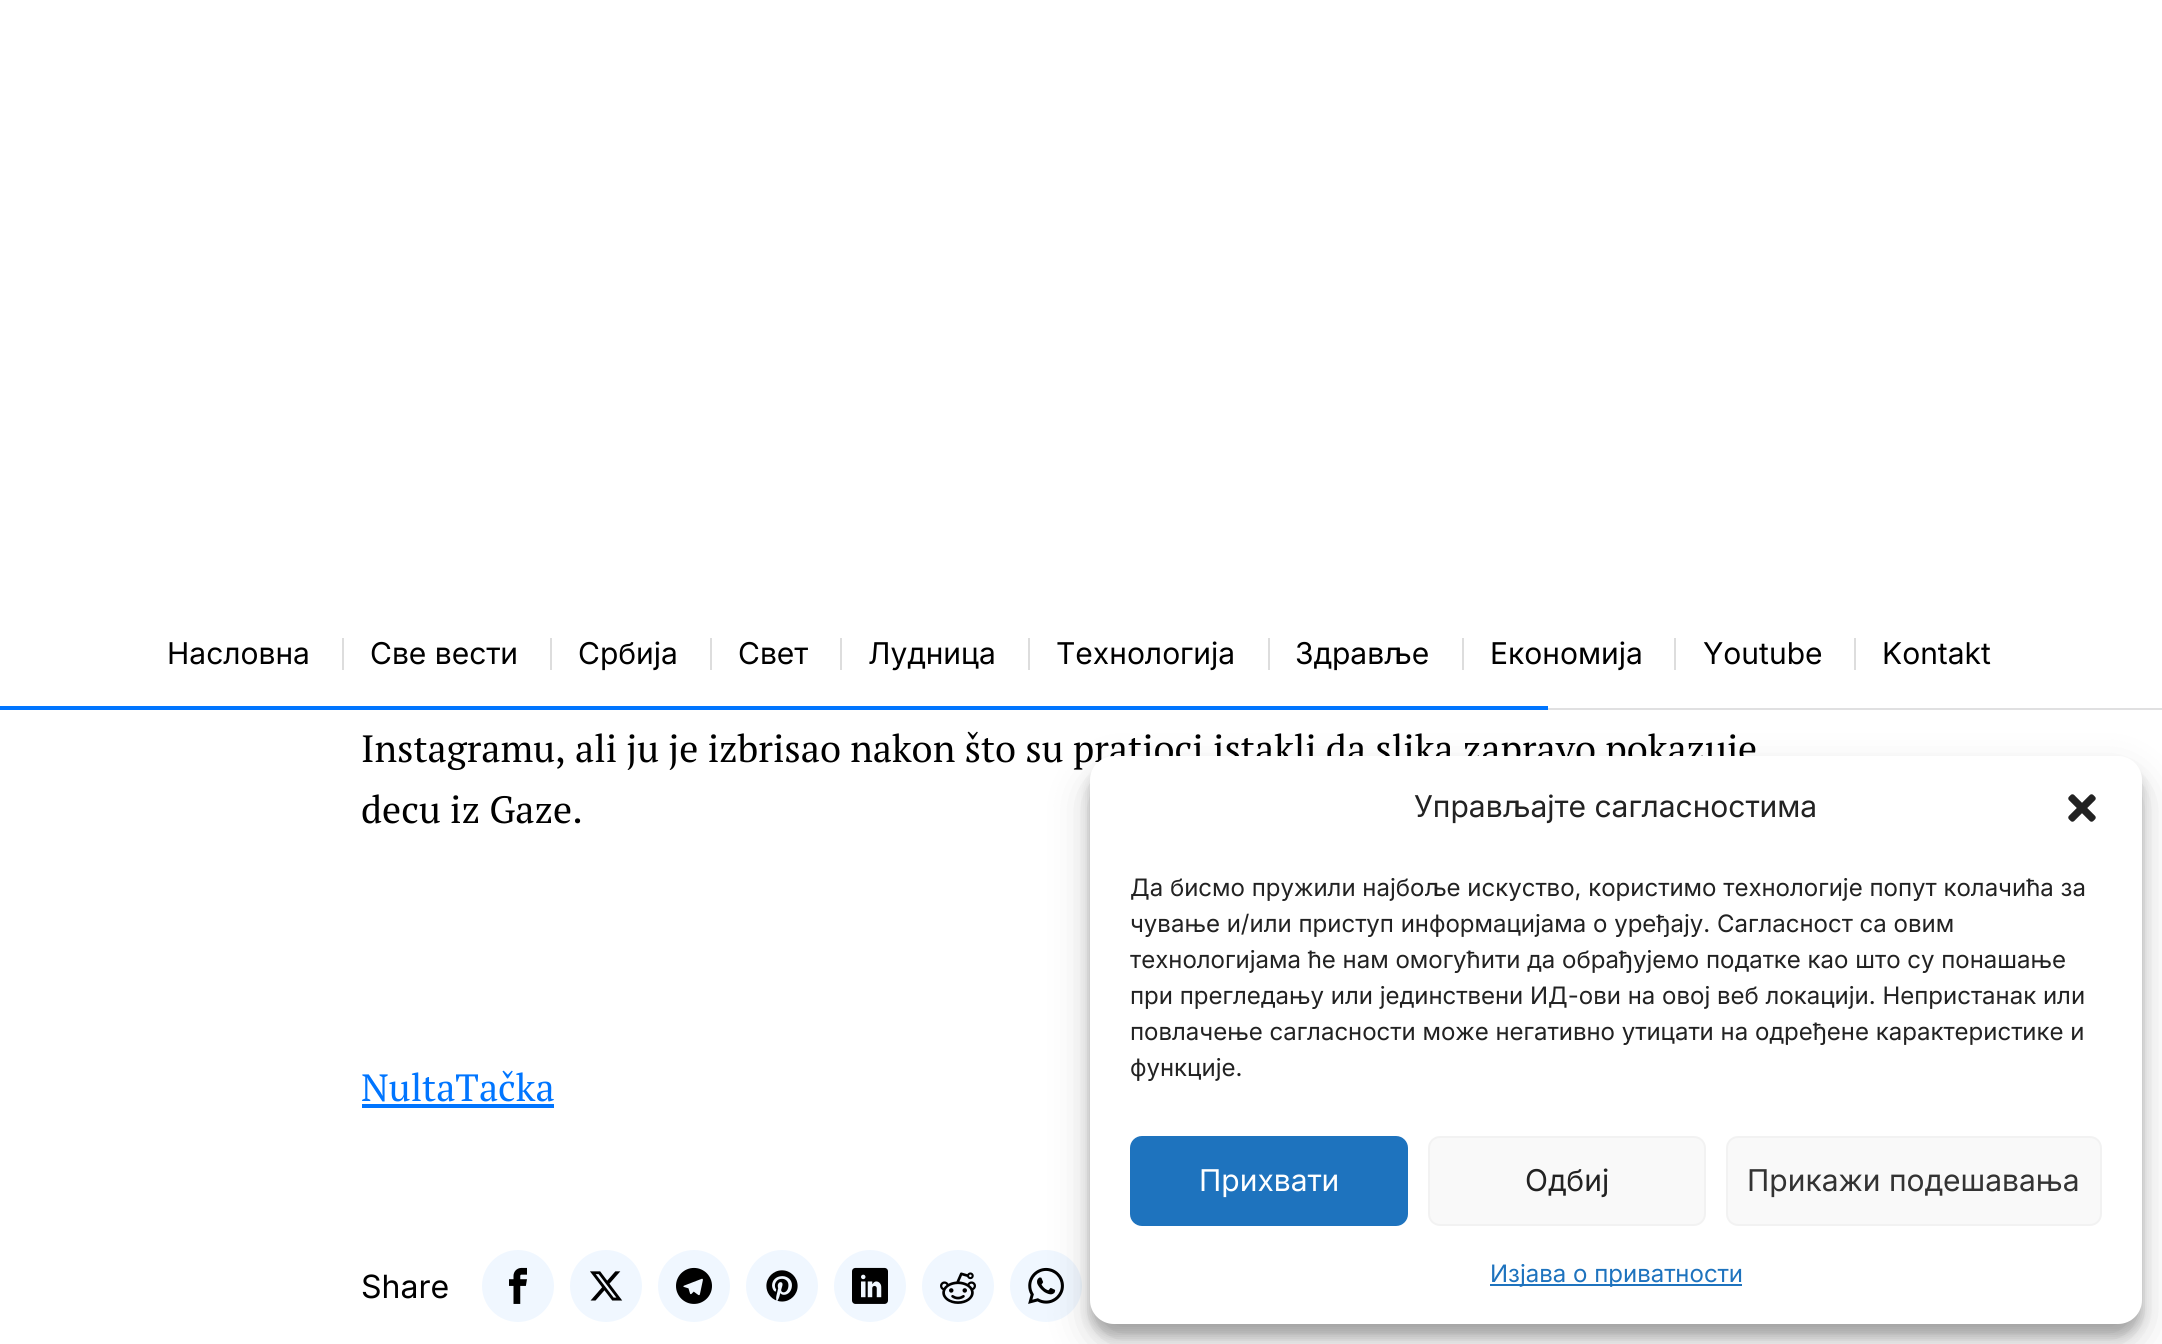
#include <cairo.h>
#include <math.h>
#include <stddef.h>

static cairo_t *c;
static void C(unsigned color){cairo_set_source_rgb(c, (color >> 16) / 255.0, (color >> 8 & 255) / 255.0, (color & 255) / 255.0);}
static void F(const char *family, double size, int italic, int bold){cairo_select_font_face(c, family, italic ? CAIRO_FONT_SLANT_ITALIC : CAIRO_FONT_SLANT_NORMAL,bold ? CAIRO_FONT_WEIGHT_BOLD : CAIRO_FONT_WEIGHT_NORMAL);cairo_set_font_size(c, size);}
static void T(double x, double y, const char *s){cairo_move_to(c, x, y);cairo_show_text(c, s);}
static void R(double x, double y, double w, double h){cairo_rectangle(c, x, y, w, h);cairo_fill(c);}
static void Q(double x, double y, double w, double h, double r){cairo_new_sub_path(c);cairo_arc(c, x + w - r, y + h - r, r, 0, M_PI / 2);cairo_arc(c, x + r, y + h - r, r, M_PI / 2, M_PI);cairo_arc(c, x + r, y + r, r, M_PI, 1.5 * M_PI);cairo_arc(c, x + w - r, y + r, r, 1.5 * M_PI, 2 * M_PI);cairo_close_path(c);}
static void S(double x, double y, double w, double h, double r, double blur, double alpha){cairo_push_group_with_content(c, CAIRO_CONTENT_ALPHA);cairo_set_operator(c, CAIRO_OPERATOR_SOURCE);for (int i = 15; i >= -15 && fmin(w, h) + blur * i / 3 > 0; i -= 2) {double e = blur * i / 6;cairo_set_source_rgba(c, 0, 0, 0, alpha * erfc((i - 1) / 8.5) / 2);Q(x - e, y - e, w + 2 * e, h + 2 * e, fmax(0, fmin(r + e + blur * .6, fmin(w, h) / 2 + e)));cairo_fill(c);}cairo_pattern_t *soft = cairo_pop_group(c);cairo_mask(c, soft);cairo_pattern_destroy(soft);}
static void I(const char *path, double x, double y, double w, double h){cairo_surface_t *image = cairo_image_surface_create_from_png(path);cairo_save(c);cairo_set_source_surface(c, image, x, y);cairo_rectangle(c, x, y, w, h);cairo_fill(c);cairo_restore(c);cairo_surface_destroy(image);}
int main(void) {
cairo_surface_t *surface = cairo_image_surface_create(CAIRO_FORMAT_RGB24, 2162, 1344);
c = cairo_create(surface);
cairo_font_options_t *options = cairo_font_options_create();
cairo_font_options_set_hint_metrics(options, CAIRO_HINT_METRICS_OFF);
cairo_font_options_set_hint_style(options, CAIRO_HINT_STYLE_NONE);
cairo_set_font_options(c, options);
cairo_set_miter_limit(c, 4);
C(0xffffff);
cairo_paint(c);
C(0xe0e0e1);
R(1548,708,614,2);
F("Inter",30,0,0);
C(0x000000);
T(167,664,"Насловна");
C(0xdddddd);
R(342,638,2,32);
C(0x000000);
T(370,664,"Све вести");
C(0xdddddd);
R(550,638,2,32);
C(0x000000);
T(578,664,"Србија");
C(0xdddddd);
R(710,638,2,32);
C(0x000000);
T(738,664,"Свет");
C(0xdddddd);
R(840,638,2,32);
C(0x000000);
T(868,664,"Лудница");
C(0xdddddd);
R(1028,638,2,32);
C(0x000000);
T(1056,664,"Технологија");
C(0xdddddd);
R(1268,638,2,32);
C(0x000000);
T(1295,664,"Здравље");
C(0xdddddd);
R(1462,638,2,32);
C(0x000000);
T(1490,664,"Економија");
C(0xdddddd);
R(1674,638,2,32);
C(0x000000);
T(1703,664,"Youtube");
C(0xdddddd);
R(1854,638,2,32);
C(0x000000);
T(1882,664,"Kontakt");
C(0x0075ff);
R(0,706,1548,4);
F("PT Serif",38,0,0);
C(0x000000);
T(361,762,"Instagramu, ali ju je izbrisao nakon što su pratioci istakli da slika zapravo pokazuje");
T(361,823,"decu iz Gaze.");
C(0x0075ff);
T(361,1101,"NultaTačka");
R(362,1104,192,4);
F("Inter",32,0,0);
C(0x000000);
T(361,1298,"Share");
C(0xf0f7ff);
cairo_new_path(c);
cairo_arc(c,518,1286,36,0,2 * M_PI);
cairo_fill(c);
I("1.png",509,1267,18,37);
cairo_arc(c,606,1286,36,0,2 * M_PI);
cairo_fill(c);
I("2.png",590,1271,33,30);
cairo_arc(c,694,1286,36,0,2 * M_PI);
cairo_fill(c);
I("3.png",676,1267,36,37);
cairo_arc(c,782,1286,36,0,2 * M_PI);
cairo_fill(c);
I("4.png",766,1270,32,32);
cairo_arc(c,870,1286,36,0,2 * M_PI);
cairo_fill(c);
I("5.png",852,1267,36,37);
cairo_arc(c,958,1286,36,0,2 * M_PI);
cairo_fill(c);
I("6.png",940,1272,36,32);
cairo_arc(c,1046,1286,36,0,2 * M_PI);
cairo_fill(c);
I("7.png",1028,1267,36,37);
C(0x000000);
S(1090,768,1052,568,24,6,.23);
S(1090,776,1052,568,24,20,.19);
C(0xffffff);
Q(1090,756,1052,568,24);
cairo_fill(c);
F("Inter",30,0,0);
C(0x222222);
T(1414,817,"Управљајте сагласностима");
I("8.png",2068,794,28,28);
F("Inter",24,0,0);
T(1130,896,"Да бисмо пружили најбоље искуство, користимо технологије попут колачића за");
T(1130,932,"чување и/или приступ информацијама о уређају. Сагласност са овим");
T(1130,968,"технологијама ће нам омогућити да обрађујемо податке као што су понашање");
T(1130,1004,"при прегледању или јединствени ИД-ови на овој веб локацији. Непристанак или");
T(1130,1040,"повлачење сагласности може негативно утицати на одређене карактеристике и");
T(1130,1076,"функције.");
C(0x1e73be);
Q(1131,1137,276,88,11);
cairo_fill_preserve(c);
cairo_stroke(c);
F("Inter",30,0,0);
C(0xffffff);
T(1199,1191,"Прихвати");
C(0xf9f9f9);
Q(1429,1137,276,88,11);
cairo_fill_preserve(c);
C(0xf2f2f2);
cairo_stroke(c);
C(0x222222);
T(1525,1191,"Одбиј");
C(0xf9f9f9);
Q(1727,1137,374,88,11);
cairo_fill_preserve(c);
C(0xf2f2f2);
cairo_stroke(c);
C(0x333333);
T(1747,1191,"Прикажи подешавања");
C(0x1e73be);
R(1490,1284,252,2);
F("Inter",24,0,0);
T(1490,1282,"Изјава о приватности");
cairo_surface_write_to_png(surface, "o.png");
cairo_font_options_destroy(options);
cairo_destroy(c);
cairo_surface_destroy(surface);
return 0;
}
